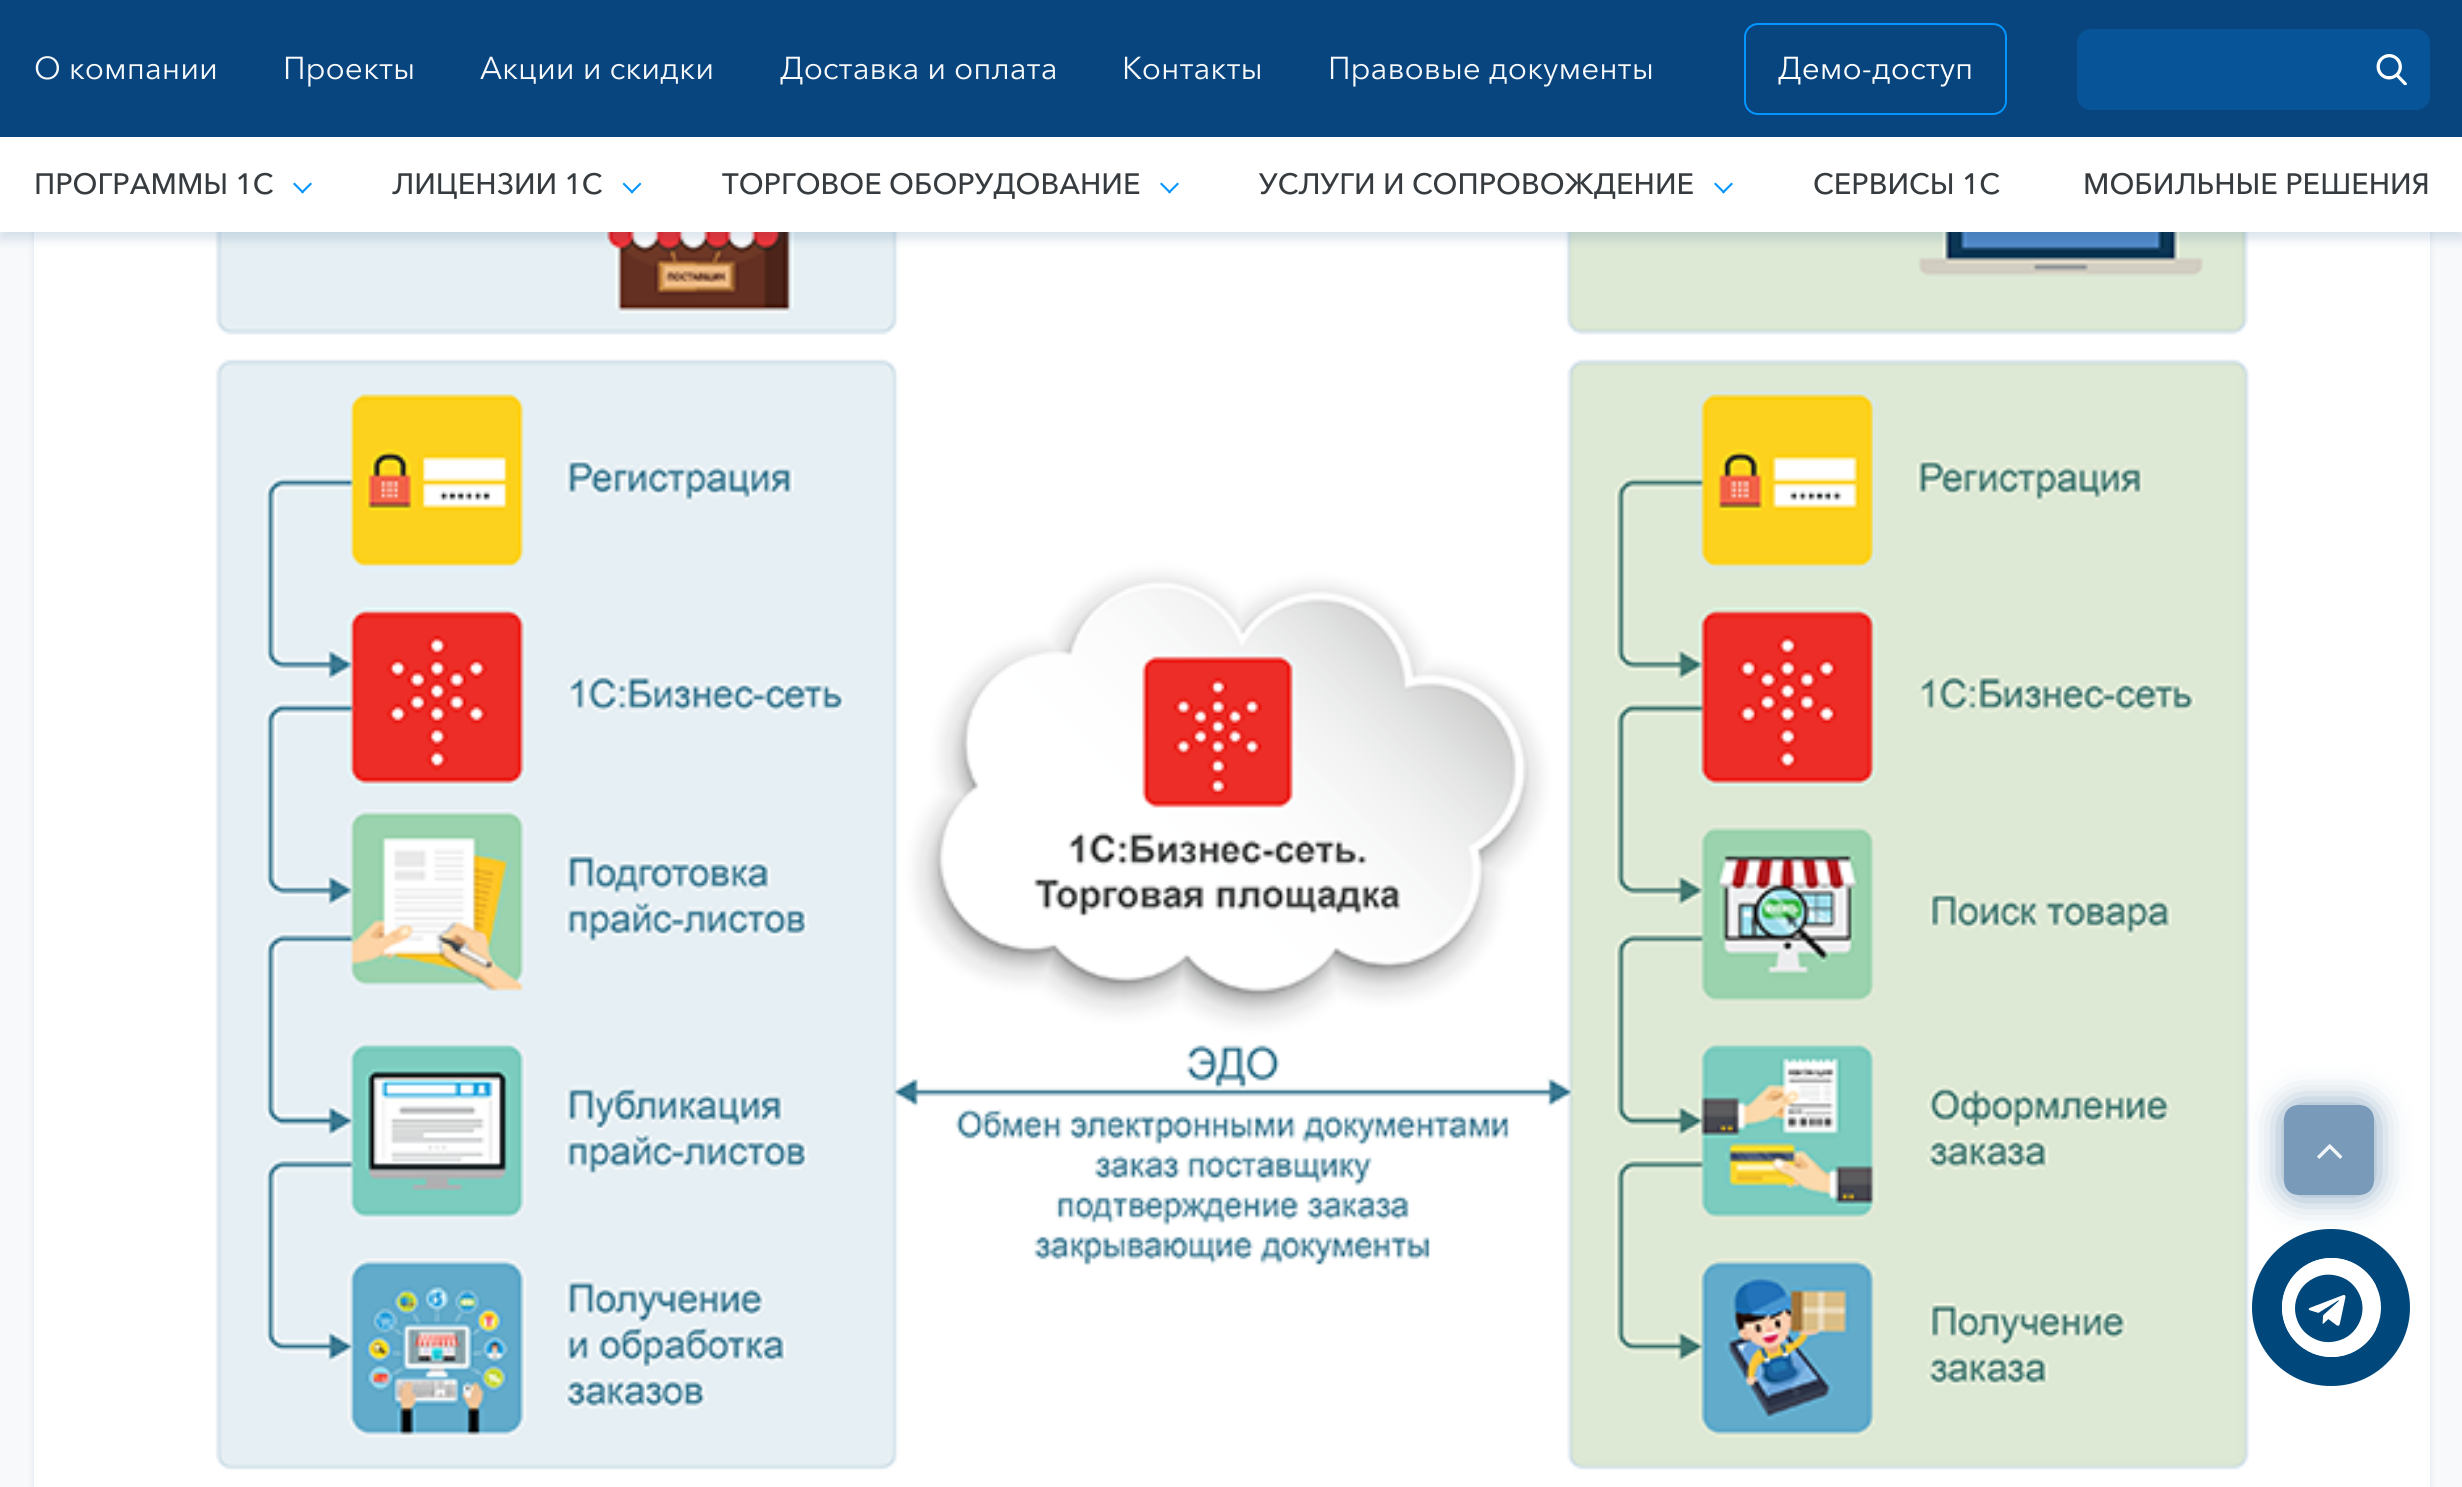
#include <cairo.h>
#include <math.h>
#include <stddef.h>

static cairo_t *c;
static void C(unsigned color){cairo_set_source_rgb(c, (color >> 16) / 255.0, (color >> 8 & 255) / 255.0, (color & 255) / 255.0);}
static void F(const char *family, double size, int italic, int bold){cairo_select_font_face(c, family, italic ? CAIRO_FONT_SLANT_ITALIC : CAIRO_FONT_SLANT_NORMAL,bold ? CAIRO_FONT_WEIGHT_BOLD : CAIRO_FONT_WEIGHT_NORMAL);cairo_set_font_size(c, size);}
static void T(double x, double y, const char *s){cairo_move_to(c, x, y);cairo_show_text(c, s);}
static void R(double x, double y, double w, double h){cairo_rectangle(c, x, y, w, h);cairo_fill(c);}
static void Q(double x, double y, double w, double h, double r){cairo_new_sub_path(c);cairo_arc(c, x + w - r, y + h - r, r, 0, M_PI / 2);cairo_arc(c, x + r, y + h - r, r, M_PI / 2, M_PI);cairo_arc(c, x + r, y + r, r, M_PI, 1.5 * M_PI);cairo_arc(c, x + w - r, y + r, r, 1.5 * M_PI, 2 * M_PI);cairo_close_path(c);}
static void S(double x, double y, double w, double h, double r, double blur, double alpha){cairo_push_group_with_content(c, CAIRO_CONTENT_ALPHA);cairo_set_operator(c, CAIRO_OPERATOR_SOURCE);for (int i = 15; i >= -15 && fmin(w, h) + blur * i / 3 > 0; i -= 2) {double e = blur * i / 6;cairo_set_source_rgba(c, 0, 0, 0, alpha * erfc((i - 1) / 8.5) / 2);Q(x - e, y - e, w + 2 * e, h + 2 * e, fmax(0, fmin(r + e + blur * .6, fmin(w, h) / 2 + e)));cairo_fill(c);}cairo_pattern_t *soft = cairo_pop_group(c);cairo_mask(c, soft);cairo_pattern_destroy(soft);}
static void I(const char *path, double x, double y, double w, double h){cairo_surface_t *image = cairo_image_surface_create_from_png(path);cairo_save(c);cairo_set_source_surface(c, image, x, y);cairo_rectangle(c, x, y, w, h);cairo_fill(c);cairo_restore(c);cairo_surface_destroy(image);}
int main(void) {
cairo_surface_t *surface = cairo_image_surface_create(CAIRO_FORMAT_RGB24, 2462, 1487);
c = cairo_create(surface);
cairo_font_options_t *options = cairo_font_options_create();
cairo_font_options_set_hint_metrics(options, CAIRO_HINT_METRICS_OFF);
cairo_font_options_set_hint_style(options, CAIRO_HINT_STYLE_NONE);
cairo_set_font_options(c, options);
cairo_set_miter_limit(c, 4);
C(0xf7f9fb);
cairo_paint(c);
C(0x07457d);
S(34,-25,2396,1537,14,3.5,.1);
C(0xffffff);
R(34,232,2396,1255);
I("1.png",215,232,2035,1238);
cairo_save(c);
cairo_set_fill_rule(c,CAIRO_FILL_RULE_EVEN_ODD);
cairo_new_path(c);
cairo_move_to(c,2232,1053);
cairo_line_to(c,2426,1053);
cairo_line_to(c,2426,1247);
cairo_line_to(c,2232,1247);
cairo_close_path(c);
cairo_move_to(c,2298,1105);
cairo_line_to(c,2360,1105);
cairo_curve_to(c,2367.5,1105,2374,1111.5,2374,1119);
cairo_line_to(c,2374,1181);
cairo_curve_to(c,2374,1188.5,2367.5,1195,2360,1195);
cairo_line_to(c,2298,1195);
cairo_curve_to(c,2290.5,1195,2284,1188.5,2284,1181);
cairo_line_to(c,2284,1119);
cairo_curve_to(c,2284,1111.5,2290.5,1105,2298,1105);
cairo_close_path(c);
cairo_clip(c);
C(0x08457e);
S(2284,1105,90,90,14,17,.54);
cairo_restore(c);
cairo_set_source_rgba(c,0.129,0.345,0.545,0.6);
Q(2284,1105,90,90,14);
cairo_fill(c);
I("2.png",2317,1144,26,15);
C(0x07457d);
S(0,7,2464,232,0,5.5,.15);
C(0xffffff);
R(0,137,2462,95);
C(0x08457e);
R(0,0,2462,137);
F("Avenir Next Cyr",31.5,0,0);
C(0xf7f9fb);
T(34,79,"О компании");
T(283,79,"Проекты");
T(480,79,"Акции и скидки");
T(780,79,"Доставка и оплата");
T(1122,79,"Контакты");
T(1328,79,"Правовые документы");
Q(1745,24,261,90,13);
C(0x0495ff);
cairo_stroke(c);
C(0xffffff);
T(1778,79,"Демо-доступ");
C(0x075598);
Q(2077,29,353,81,14);
cairo_fill(c);
I("3.png",2376,54,31,32);
F("Avenir Next Cyr Medium",29.25,0,0);
C(0x363b40);
T(34,194,"ПРОГРАММЫ 1С");
C(0x0495ff);
cairo_new_path(c);
cairo_move_to(c,301,192);
cairo_line_to(c,310.5,182.5);
cairo_line_to(c,312,184);
cairo_line_to(c,302.5,193.5);
cairo_close_path(c);
cairo_fill(c);
cairo_new_path(c);
cairo_move_to(c,293,184);
cairo_line_to(c,294.5,182.5);
cairo_line_to(c,304,192);
cairo_line_to(c,302.5,193.5);
cairo_close_path(c);
cairo_fill(c);
C(0x363b40);
T(392,194,"ЛИЦЕНЗИИ 1С");
C(0x0495ff);
cairo_new_path(c);
cairo_move_to(c,630.5,192);
cairo_line_to(c,640,182.5);
cairo_line_to(c,641.5,184);
cairo_line_to(c,632,193.5);
cairo_close_path(c);
cairo_fill(c);
cairo_new_path(c);
cairo_move_to(c,622.5,184);
cairo_line_to(c,624,182.5);
cairo_line_to(c,633.5,192);
cairo_line_to(c,632,193.5);
cairo_close_path(c);
cairo_fill(c);
C(0x363b40);
T(722,194,"ТОРГОВОЕ ОБОРУДОВАНИЕ");
C(0x0495ff);
cairo_new_path(c);
cairo_move_to(c,1168,192);
cairo_line_to(c,1177.5,182.5);
cairo_line_to(c,1179,184);
cairo_line_to(c,1169.5,193.5);
cairo_close_path(c);
cairo_fill(c);
cairo_new_path(c);
cairo_move_to(c,1160,184);
cairo_line_to(c,1161.5,182.5);
cairo_line_to(c,1171,192);
cairo_line_to(c,1169.5,193.5);
cairo_close_path(c);
cairo_fill(c);
C(0x363b40);
T(1259,194,"УСЛУГИ И СОПРОВОЖДЕНИЕ");
C(0x0495ff);
cairo_new_path(c);
cairo_move_to(c,1722,192);
cairo_line_to(c,1731.5,182.5);
cairo_line_to(c,1733,184);
cairo_line_to(c,1723.5,193.5);
cairo_close_path(c);
cairo_fill(c);
cairo_new_path(c);
cairo_move_to(c,1714,184);
cairo_line_to(c,1715.5,182.5);
cairo_line_to(c,1725,192);
cairo_line_to(c,1723.5,193.5);
cairo_close_path(c);
cairo_fill(c);
C(0x363b40);
T(1813,194,"СЕРВИСЫ 1С");
T(2083,194,"МОБИЛЬНЫЕ РЕШЕНИЯ");
C(0x00487c);
Q(2252,1229,158,157,78.5);
cairo_fill(c);
C(0xffffff);
cairo_arc(c,2331.5,1307.5,49.5,0,2 * M_PI);
cairo_fill(c);
cairo_save(c);
Q(2282,1258,99,99,49.5);
cairo_clip(c);
cairo_new_path(c);
cairo_move_to(c,2331.5,1258);
cairo_line_to(c,2376,1258);
cairo_line_to(c,2376,1357);
cairo_line_to(c,2331.5,1357);
cairo_curve_to(c,2304,1357,2282,1335,2282,1307.5);
cairo_curve_to(c,2282,1280,2304,1258,2331.5,1258);
cairo_close_path(c);
cairo_fill(c);
cairo_restore(c);
I("4.png",2295,1274,68,69);
cairo_surface_write_to_png(surface, "o.png");
cairo_font_options_destroy(options);
cairo_destroy(c);
cairo_surface_destroy(surface);
return 0;
}
